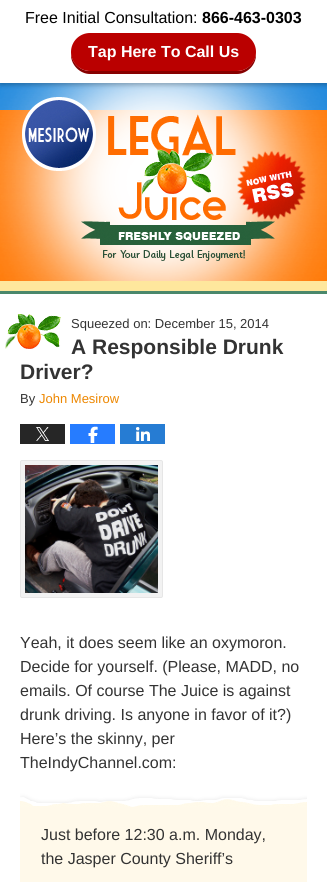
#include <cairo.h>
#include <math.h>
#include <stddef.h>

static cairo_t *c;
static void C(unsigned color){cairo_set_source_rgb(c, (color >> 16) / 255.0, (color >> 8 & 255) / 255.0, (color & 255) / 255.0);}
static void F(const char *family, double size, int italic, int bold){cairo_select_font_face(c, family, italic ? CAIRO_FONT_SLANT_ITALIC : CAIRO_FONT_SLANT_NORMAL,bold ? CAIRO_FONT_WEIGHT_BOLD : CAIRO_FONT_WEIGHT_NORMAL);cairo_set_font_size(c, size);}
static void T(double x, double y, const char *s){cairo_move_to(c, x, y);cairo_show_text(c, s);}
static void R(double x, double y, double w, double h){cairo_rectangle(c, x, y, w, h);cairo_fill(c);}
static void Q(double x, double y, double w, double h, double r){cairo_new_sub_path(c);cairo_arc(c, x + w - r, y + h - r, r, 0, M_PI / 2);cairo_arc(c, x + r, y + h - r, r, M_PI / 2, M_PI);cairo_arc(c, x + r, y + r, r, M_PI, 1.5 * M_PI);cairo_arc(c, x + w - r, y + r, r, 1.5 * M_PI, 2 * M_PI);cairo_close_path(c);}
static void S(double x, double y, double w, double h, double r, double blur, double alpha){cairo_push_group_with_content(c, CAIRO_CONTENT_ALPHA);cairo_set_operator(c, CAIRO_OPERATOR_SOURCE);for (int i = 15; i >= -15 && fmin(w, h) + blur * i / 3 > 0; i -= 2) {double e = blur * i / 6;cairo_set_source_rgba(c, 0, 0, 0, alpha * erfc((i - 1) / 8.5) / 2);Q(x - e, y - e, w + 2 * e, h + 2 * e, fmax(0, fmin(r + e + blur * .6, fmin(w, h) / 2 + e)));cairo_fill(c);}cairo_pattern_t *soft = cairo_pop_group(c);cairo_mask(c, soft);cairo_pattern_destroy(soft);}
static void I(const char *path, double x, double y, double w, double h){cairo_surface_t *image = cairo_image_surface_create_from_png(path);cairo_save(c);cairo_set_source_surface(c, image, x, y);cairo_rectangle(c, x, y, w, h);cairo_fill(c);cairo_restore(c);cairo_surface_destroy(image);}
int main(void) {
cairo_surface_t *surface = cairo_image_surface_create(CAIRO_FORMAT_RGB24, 327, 882);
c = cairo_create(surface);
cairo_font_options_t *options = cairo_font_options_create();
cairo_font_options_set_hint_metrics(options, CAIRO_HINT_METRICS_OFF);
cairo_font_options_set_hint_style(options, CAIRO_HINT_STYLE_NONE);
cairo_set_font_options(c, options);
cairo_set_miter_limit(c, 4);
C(0xffffff);
cairo_paint(c);
I("1.png",0,83,327,198);
I("2.png",0,83,327,198);
C(0x000000);
S(0,2,327,83,0,2.5,.26);
C(0xffffff);
R(0,0,327,83);
F("Liberation Sans",16,0,0);
C(0x000000);
T(25,23,"Free Initial Consultation:");
F("Liberation Sans",16,0,1);
T(202,23,"866-463-0303");
C(0x870000);
cairo_new_path(c);
cairo_move_to(c,71,53);
cairo_line_to(c,71,55);
cairo_curve_to(c,71,65,80,74,90,74);
cairo_line_to(c,237,74);
cairo_curve_to(c,247,74,256,65,256,55);
cairo_line_to(c,256,53);
cairo_curve_to(c,255,63,247,71,237,71);
cairo_line_to(c,90,71);
cairo_curve_to(c,80,71,72,63,71,53);
cairo_close_path(c);
cairo_fill(c);
C(0xba0000);
Q(71,33,185,38,19);
cairo_fill(c);
C(0xffffff);
T(88,57,"Tap Here To Call Us");
I("3.png",22,97,284,164);
C(0xfee79d);
R(0,281,327,10);
C(0x4a886b);
R(0,291,327,3);
I("4.png",5,314,56,35);
F("Liberation Sans",13,0,0);
C(0x333333);
T(71,328,"Squeezed on: December 15, 2014");
F("Liberation Sans",21,0,1);
T(71,354,"A Responsible Drunk");
T(20,379,"Driver?");
F("Liberation Sans",13,0,0);
T(20,403,"By");
C(0xed8700);
T(39,403,"John Mesirow");
I("5.png",20,424,45,20);
I("6.png",70,424,45,20);
I("7.png",120,424,45,20);
C(0xf2f2f2);
Q(20.5,460.5,142,137,1.5);
cairo_fill_preserve(c);
C(0xe6e6e6);
cairo_set_line_width(c,1);
cairo_stroke(c);
I("8.png",25,465,133,128);
F("Liberation Sans",16,0,0);
C(0x333333);
T(20,648,"Yeah, it does seem like an oxymoron.");
T(20,672,"Decide for yourself. (Please, MADD, no");
T(20,696,"emails. Of course The Juice is against");
T(20,720,"drunk driving. Is anyone in favor of it?)");
T(20,744,"Here’s the skinny, per");
T(20,768,"TheIndyChannel.com:");
C(0xfff9ea);
R(20,807,287,75);
I("9.png",20,791,287,16);
C(0x333333);
T(41,840,"Just before 12:30 a.m. Monday,");
T(41,864,"the Jasper County Sheriff’s");
cairo_surface_write_to_png(surface, "o.png");
cairo_font_options_destroy(options);
cairo_destroy(c);
cairo_surface_destroy(surface);
return 0;
}
